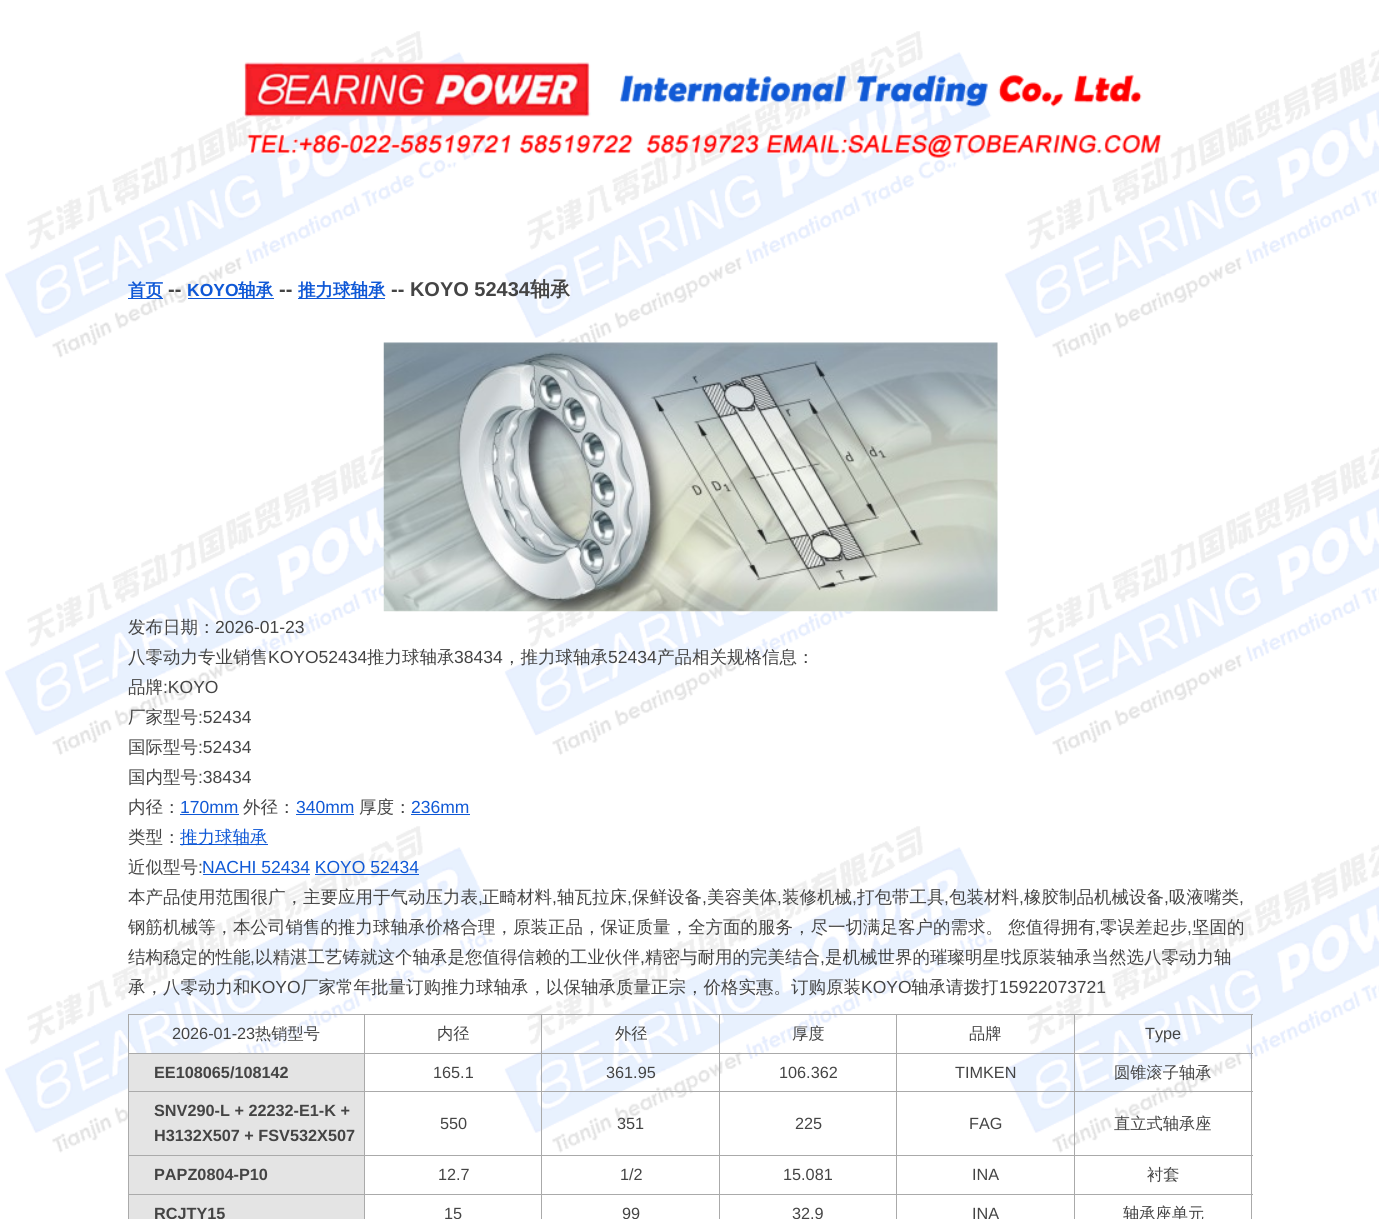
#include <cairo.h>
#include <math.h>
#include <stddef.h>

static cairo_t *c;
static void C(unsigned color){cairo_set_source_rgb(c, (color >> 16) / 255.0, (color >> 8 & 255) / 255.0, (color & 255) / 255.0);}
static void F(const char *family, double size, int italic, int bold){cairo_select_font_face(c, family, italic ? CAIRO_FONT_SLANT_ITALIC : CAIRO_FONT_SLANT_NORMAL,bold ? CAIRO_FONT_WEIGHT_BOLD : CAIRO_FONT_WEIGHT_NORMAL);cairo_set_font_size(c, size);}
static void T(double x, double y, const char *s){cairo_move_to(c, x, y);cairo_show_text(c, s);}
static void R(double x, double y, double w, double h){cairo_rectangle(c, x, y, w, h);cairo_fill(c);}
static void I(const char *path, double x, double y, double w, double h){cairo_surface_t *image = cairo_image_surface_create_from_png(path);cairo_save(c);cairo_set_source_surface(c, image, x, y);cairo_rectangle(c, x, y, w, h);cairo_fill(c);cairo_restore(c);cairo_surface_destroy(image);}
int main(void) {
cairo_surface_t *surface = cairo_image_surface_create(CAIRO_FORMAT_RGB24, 1379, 1219);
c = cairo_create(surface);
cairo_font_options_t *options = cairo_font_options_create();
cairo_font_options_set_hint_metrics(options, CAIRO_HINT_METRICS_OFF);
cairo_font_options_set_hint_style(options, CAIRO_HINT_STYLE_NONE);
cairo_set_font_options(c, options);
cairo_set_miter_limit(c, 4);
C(0xffffff);
cairo_paint(c);
I("1.png",5,31,1374,1122);
I("2.png",243,62,919,97);
C(0x0f58d6);
R(128,298,35,1);
F("WenQuanYi Zen Hei",17.5,0,1);
T(128,296,"首页");
F("Liberation Sans",20,0,1);
C(0x444444);
T(168,296,"--");
F("Liberation Sans",17.5,0,1);
C(0x0f58d6);
T(187,296,"KOYO");
R(188,298,86,1);
F("WenQuanYi Zen Hei",17.5,0,1);
T(238,296,"轴承");
F("Liberation Sans",20,0,1);
C(0x444444);
T(279,296,"--");
C(0x0f58d6);
R(298,298,87,1);
F("WenQuanYi Zen Hei",17.5,0,1);
T(298,296,"推力球轴承");
F("Liberation Sans",20,0,1);
C(0x444444);
T(391,296,"-- KOYO 52434");
F("WenQuanYi Zen Hei",20,0,1);
T(530,296,"轴承");
I("3.png",383,342,615,270);
F("WenQuanYi Zen Hei Medium",17.5,0,0);
T(128,633,"发布日期：");
F("Liberation Sans",17.5,0,0);
T(215,633,"2026-01-23");
F("WenQuanYi Zen Hei Medium",17.5,0,0);
T(128,663,"八零动力专业销售");
F("Liberation Sans",17.5,0,0);
T(268,663,"KOYO52434");
F("WenQuanYi Zen Hei Medium",17.5,0,0);
T(367,663,"推力球轴承");
F("Liberation Sans",17.5,0,0);
T(454,663,"38434");
F("WenQuanYi Zen Hei Medium",17.5,0,0);
T(503,663,"，推力球轴承");
F("Liberation Sans",17.5,0,0);
T(608,663,"52434");
F("WenQuanYi Zen Hei Medium",17.5,0,0);
T(657,663,"产品相关规格信息：");
T(128,693,"品牌");
F("Liberation Sans",17.5,0,0);
T(163,693,":KOYO");
F("WenQuanYi Zen Hei Medium",17.5,0,0);
T(128,723,"厂家型号");
F("Liberation Sans",17.5,0,0);
T(198,723,":52434");
F("WenQuanYi Zen Hei Medium",17.5,0,0);
T(128,753,"国际型号");
F("Liberation Sans",17.5,0,0);
T(198,753,":52434");
F("WenQuanYi Zen Hei Medium",17.5,0,0);
T(128,783,"国内型号");
F("Liberation Sans",17.5,0,0);
T(198,783,":38434");
F("WenQuanYi Zen Hei Medium",17.5,0,0);
T(128,813,"内径：");
F("Liberation Sans",17.5,0,0);
C(0x0f58d6);
T(180,813,"170mm");
R(180,814,59,1);
F("WenQuanYi Zen Hei Medium",17.5,0,0);
C(0x444444);
T(243,813,"外径：");
F("Liberation Sans",17.5,0,0);
C(0x0f58d6);
T(296,813,"340mm");
R(296,814,58,1);
F("WenQuanYi Zen Hei Medium",17.5,0,0);
C(0x444444);
T(359,813,"厚度：");
F("Liberation Sans",17.5,0,0);
C(0x0f58d6);
T(411,813,"236mm");
R(411,814,59,1);
F("WenQuanYi Zen Hei Medium",17.5,0,0);
C(0x444444);
T(128,843,"类型：");
C(0x0f58d6);
R(180,844,88,1);
T(180,843,"推力球轴承");
C(0x444444);
T(128,873,"近似型号");
F("Liberation Sans",17.5,0,0);
T(198,873,":");
C(0x0f58d6);
T(202,873,"NACHI 52434 KOYO 52434");
R(203,874,107,1);
R(315,874,104,1);
F("WenQuanYi Zen Hei Medium",17.5,0,0);
C(0x444444);
T(128,903,"本产品使用范围很广，主要应用于气动压力表");
F("Liberation Sans",17.5,0,0);
T(478,903,",");
F("WenQuanYi Zen Hei Medium",17.5,0,0);
T(482,903,"正畸材料");
F("Liberation Sans",17.5,0,0);
T(552,903,",");
F("WenQuanYi Zen Hei Medium",17.5,0,0);
T(557,903,"轴瓦拉床");
F("Liberation Sans",17.5,0,0);
T(627,903,",");
F("WenQuanYi Zen Hei Medium",17.5,0,0);
T(632,903,"保鲜设备");
F("Liberation Sans",17.5,0,0);
T(702,903,",");
F("WenQuanYi Zen Hei Medium",17.5,0,0);
T(707,903,"美容美体");
F("Liberation Sans",17.5,0,0);
T(777,903,",");
F("WenQuanYi Zen Hei Medium",17.5,0,0);
T(782,903,"装修机械");
F("Liberation Sans",17.5,0,0);
T(852,903,",");
F("WenQuanYi Zen Hei Medium",17.5,0,0);
T(857,903,"打包带工具");
F("Liberation Sans",17.5,0,0);
T(944,903,",");
F("WenQuanYi Zen Hei Medium",17.5,0,0);
T(949,903,"包装材料");
F("Liberation Sans",17.5,0,0);
T(1019,903,",");
F("WenQuanYi Zen Hei Medium",17.5,0,0);
T(1024,903,"橡胶制品机械设备");
F("Liberation Sans",17.5,0,0);
T(1164,903,",");
F("WenQuanYi Zen Hei Medium",17.5,0,0);
T(1169,903,"吸液嘴类");
F("Liberation Sans",17.5,0,0);
T(1239,903,",");
F("WenQuanYi Zen Hei Medium",17.5,0,0);
T(128,933,"钢筋机械等，本公司销售的推力球轴承价格合理，原装正品，保证质量，全方面的服务，尽一切满足客户的需求。 您值得拥有");
F("Liberation Sans",17.5,0,0);
T(1095,933,",");
F("WenQuanYi Zen Hei Medium",17.5,0,0);
T(1100,933,"零误差起步");
F("Liberation Sans",17.5,0,0);
T(1187,933,",");
F("WenQuanYi Zen Hei Medium",17.5,0,0);
T(1192,933,"坚固的");
T(128,963,"结构稳定的性能");
T(255,963,"以精湛工艺铸就这个轴承是您值得信赖的工业伙伴");
T(645,963,"精密与耐用的完美结合");
T(825,963,"是机械世界的璀璨明星");
F("Liberation Sans",17.5,0,0);
T(1000,963,"!");
F("WenQuanYi Zen Hei Medium",17.5,0,0);
T(1004,963,"找原装轴承当然选八零动力轴");
F("Liberation Sans",17.5,0,0);
T(250,963,",");
T(640,963,",");
T(820,963,",");
F("WenQuanYi Zen Hei Medium",17.5,0,0);
T(128,993,"承，八零动力和");
F("Liberation Sans",17.5,0,0);
T(250,993,"KOYO");
F("WenQuanYi Zen Hei Medium",17.5,0,0);
T(301,993,"厂家常年批量订购推力球轴承，以保轴承质量正宗，价格实惠。订购原装");
F("Liberation Sans",17.5,0,0);
T(861,993,"KOYO");
F("WenQuanYi Zen Hei Medium",17.5,0,0);
T(911,993,"轴承请拨打");
F("Liberation Sans",17.5,0,0);
T(999,993,"15922073721");
C(0xaaaaaa);
R(1074,1014,179,1);
R(1074,1053,179,1);
R(1074,1091,179,1);
R(1074,1155,179,1);
R(1074,1194,179,1);
R(1074,1194,1,25);
R(896,1194,179,1);
R(1074,1155,1,40);
R(896,1155,179,1);
R(1074,1091,1,65);
R(896,1091,179,1);
R(1074,1053,1,40);
R(896,1053,179,1);
R(1074,1014,1,40);
R(896,1014,179,1);
R(896,1194,1,25);
R(719,1194,179,1);
R(896,1155,1,40);
R(719,1155,179,1);
R(896,1091,1,65);
R(719,1091,179,1);
R(896,1053,1,40);
R(719,1053,179,1);
R(896,1014,1,40);
R(719,1014,179,1);
R(719,1194,1,25);
R(541,1194,179,1);
R(719,1155,1,40);
R(541,1155,179,1);
R(719,1091,1,65);
R(541,1091,179,1);
R(719,1053,1,40);
R(541,1053,179,1);
R(719,1014,1,40);
R(541,1014,179,1);
R(541,1194,1,25);
R(364,1194,179,1);
R(541,1155,1,40);
R(364,1155,179,1);
R(541,1091,1,65);
R(364,1091,179,1);
R(541,1053,1,40);
R(364,1053,179,1);
R(541,1014,1,40);
R(364,1014,179,1);
C(0xe4e4e4);
R(129,1054,235,101);
C(0xaaaaaa);
R(364,1194,1,25);
R(128,1194,237,1);
R(364,1155,1,40);
R(128,1155,237,1);
R(364,1091,1,65);
R(128,1091,237,1);
R(364,1053,1,40);
R(128,1053,237,1);
R(364,1014,1,40);
R(128,1014,237,1);
R(128,1194,1,25);
R(128,1155,1,40);
R(128,1091,1,65);
R(128,1053,1,40);
R(128,1014,1,40);
F("Liberation Sans",16.25,0,0);
C(0x444444);
T(172,1039,"2026-01-23");
F("WenQuanYi Zen Hei Medium",16.25,0,0);
T(255,1039,"热销型号");
T(437,1039,"内径");
T(615,1039,"外径");
T(792,1039,"厚度");
T(969,1039,"品牌");
C(0xaaaaaa);
R(1251,1194,1,25);
R(1251,1155,1,40);
R(1251,1091,1,65);
R(1251,1053,1,40);
R(1251,1014,1,40);
F("Liberation Sans",16.25,0,0);
C(0x444444);
T(1145,1039,"Type");
F("Liberation Sans",16.25,0,1);
T(154,1078,"EE108065/108142");
F("Liberation Sans",16.25,0,0);
T(433,1078,"165.1");
T(606,1078,"361.95");
T(779,1078,"106.362");
T(955,1078,"TIMKEN");
F("WenQuanYi Zen Hei Medium",16.25,0,0);
T(1114,1078,"圆锥滚子轴承");
F("Liberation Sans",16.25,0,1);
T(154,1116,"SNV290-L + 22232-E1-K +");
T(154,1141,"H3132X507 + FSV532X507");
F("Liberation Sans",16.25,0,0);
T(440,1129,"550");
T(617,1129,"351");
T(795,1129,"225");
T(969,1129,"FAG");
F("WenQuanYi Zen Hei Medium",16.25,0,0);
T(1114,1129,"直立式轴承座");
C(0xe4e4e4);
R(129,1156,235,38);
F("Liberation Sans",16.25,0,1);
C(0x444444);
T(154,1180,"PAPZ0804-P10");
F("Liberation Sans",16.25,0,0);
T(438,1180,"12.7");
T(620,1180,"1/2");
T(783,1180,"15.081");
T(972,1180,"INA");
F("WenQuanYi Zen Hei Medium",16.25,0,0);
T(1147,1180,"衬套");
C(0xe4e4e4);
R(129,1195,235,24);
F("Liberation Sans",16.25,0,1);
C(0x444444);
T(154,1219,"RCJTY15");
F("Liberation Sans",16.25,0,0);
T(444,1219,"15");
T(622,1219,"99");
T(792,1219,"32.9");
T(972,1219,"INA");
F("WenQuanYi Zen Hei Medium",16.25,0,0);
T(1123,1219,"轴承座单元");
cairo_surface_write_to_png(surface, "o.png");
cairo_font_options_destroy(options);
cairo_destroy(c);
cairo_surface_destroy(surface);
return 0;
}
